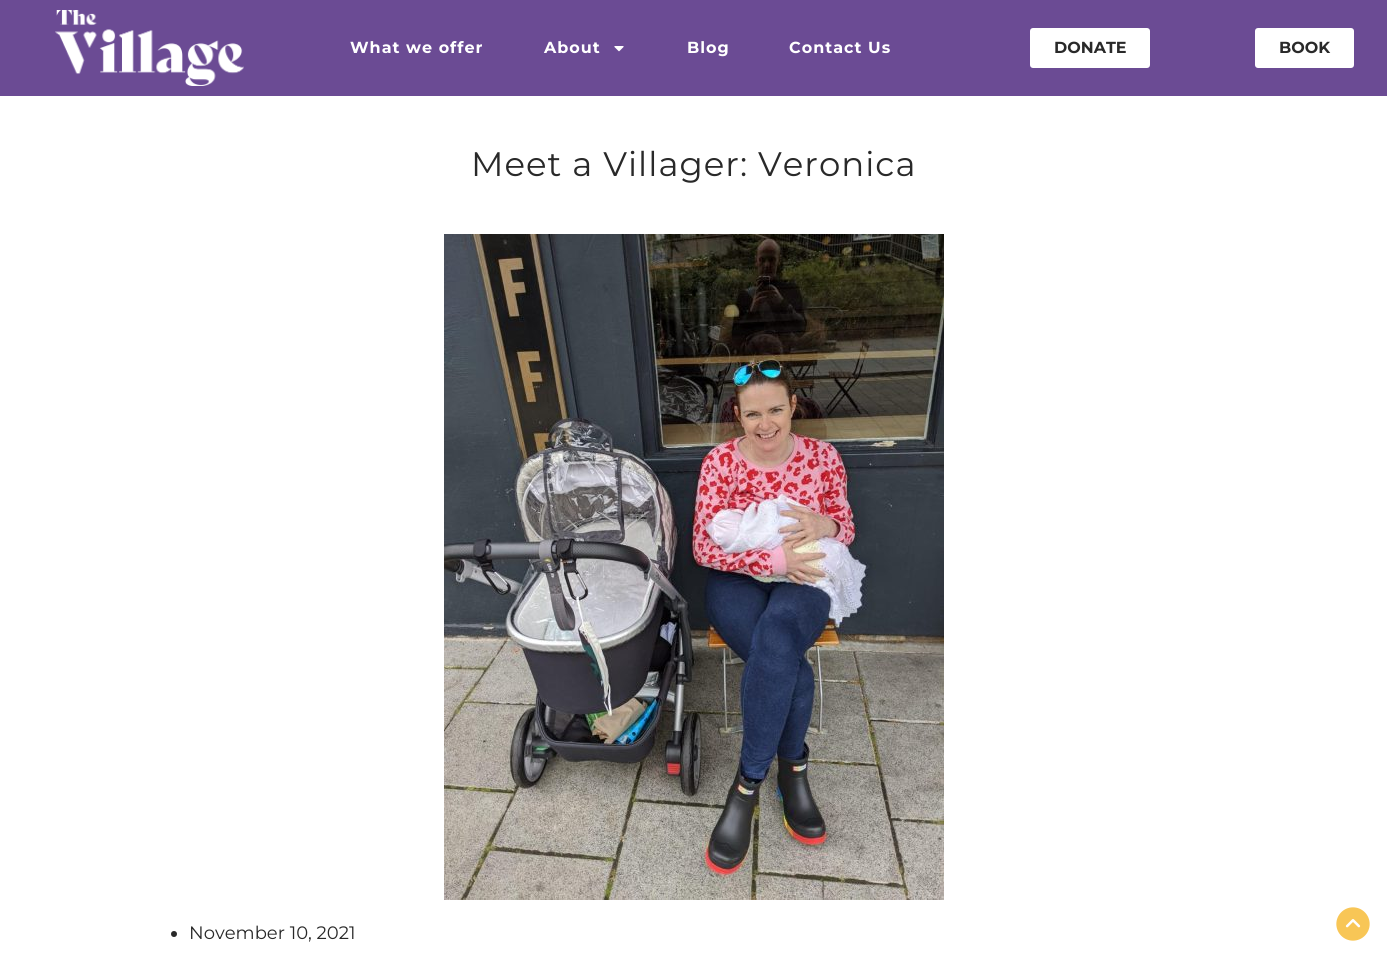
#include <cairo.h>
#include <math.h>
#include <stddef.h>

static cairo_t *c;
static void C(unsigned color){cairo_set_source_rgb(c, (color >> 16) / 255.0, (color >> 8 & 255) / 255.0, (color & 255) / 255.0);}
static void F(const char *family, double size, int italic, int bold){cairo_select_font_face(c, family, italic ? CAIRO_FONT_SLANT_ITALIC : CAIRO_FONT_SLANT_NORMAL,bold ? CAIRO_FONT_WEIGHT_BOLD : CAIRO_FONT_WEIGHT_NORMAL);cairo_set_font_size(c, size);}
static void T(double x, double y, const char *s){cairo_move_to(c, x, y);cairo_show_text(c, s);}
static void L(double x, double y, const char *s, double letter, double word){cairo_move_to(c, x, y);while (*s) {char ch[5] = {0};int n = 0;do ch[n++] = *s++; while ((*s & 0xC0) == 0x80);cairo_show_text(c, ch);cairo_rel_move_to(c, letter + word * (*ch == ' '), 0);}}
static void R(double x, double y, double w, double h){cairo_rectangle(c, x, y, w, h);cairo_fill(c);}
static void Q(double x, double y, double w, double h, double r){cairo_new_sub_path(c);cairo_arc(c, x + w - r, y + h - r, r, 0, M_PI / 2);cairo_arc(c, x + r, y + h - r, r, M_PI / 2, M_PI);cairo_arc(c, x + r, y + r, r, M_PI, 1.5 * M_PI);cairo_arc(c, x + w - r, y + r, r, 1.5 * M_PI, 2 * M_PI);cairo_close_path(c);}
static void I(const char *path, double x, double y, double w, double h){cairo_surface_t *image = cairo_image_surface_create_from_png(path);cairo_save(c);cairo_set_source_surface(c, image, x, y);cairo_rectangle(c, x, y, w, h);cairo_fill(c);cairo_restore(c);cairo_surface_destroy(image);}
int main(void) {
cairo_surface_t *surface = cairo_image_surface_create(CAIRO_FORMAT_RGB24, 1387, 962);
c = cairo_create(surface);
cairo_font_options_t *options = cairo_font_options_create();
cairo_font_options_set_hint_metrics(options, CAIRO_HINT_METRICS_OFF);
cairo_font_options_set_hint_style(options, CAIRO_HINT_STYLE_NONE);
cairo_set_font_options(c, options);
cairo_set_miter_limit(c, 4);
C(0xffffff);
cairo_paint(c);
C(0x6b4b94);
R(0,0,1387,96);
I("1.png",55,10,189,76);
F("Montserrat Thin",16,0,0);
C(0xffffff);
L(350,53,"What we offer",1,0);
L(544,53,"About",1,0);
I("2.png",614,46,10,6);
L(687,53,"Blog",1,0);
L(789,53,"Contact Us",1,0);
Q(1030,28,120,40,3);
cairo_fill(c);
C(0x292929);
T(1054,53,"DONATE");
C(0xffffff);
Q(1255,28,99,40,3);
cairo_fill(c);
C(0x292929);
T(1279,53,"BOOK");
F("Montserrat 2 Thin",34,0,0);
L(471,176,"Meet a Villager: Veronica",1,0);
I("3.png",444,234,500,666);
cairo_arc(c,174,934,3,0,2 * M_PI);
cairo_fill(c);
F("Montserrat 2 Thin",18,0,0);
T(189,939,"November 10, 2021");
I("4.png",1336,907,34,34);
cairo_surface_write_to_png(surface, "o.png");
cairo_font_options_destroy(options);
cairo_destroy(c);
cairo_surface_destroy(surface);
return 0;
}
